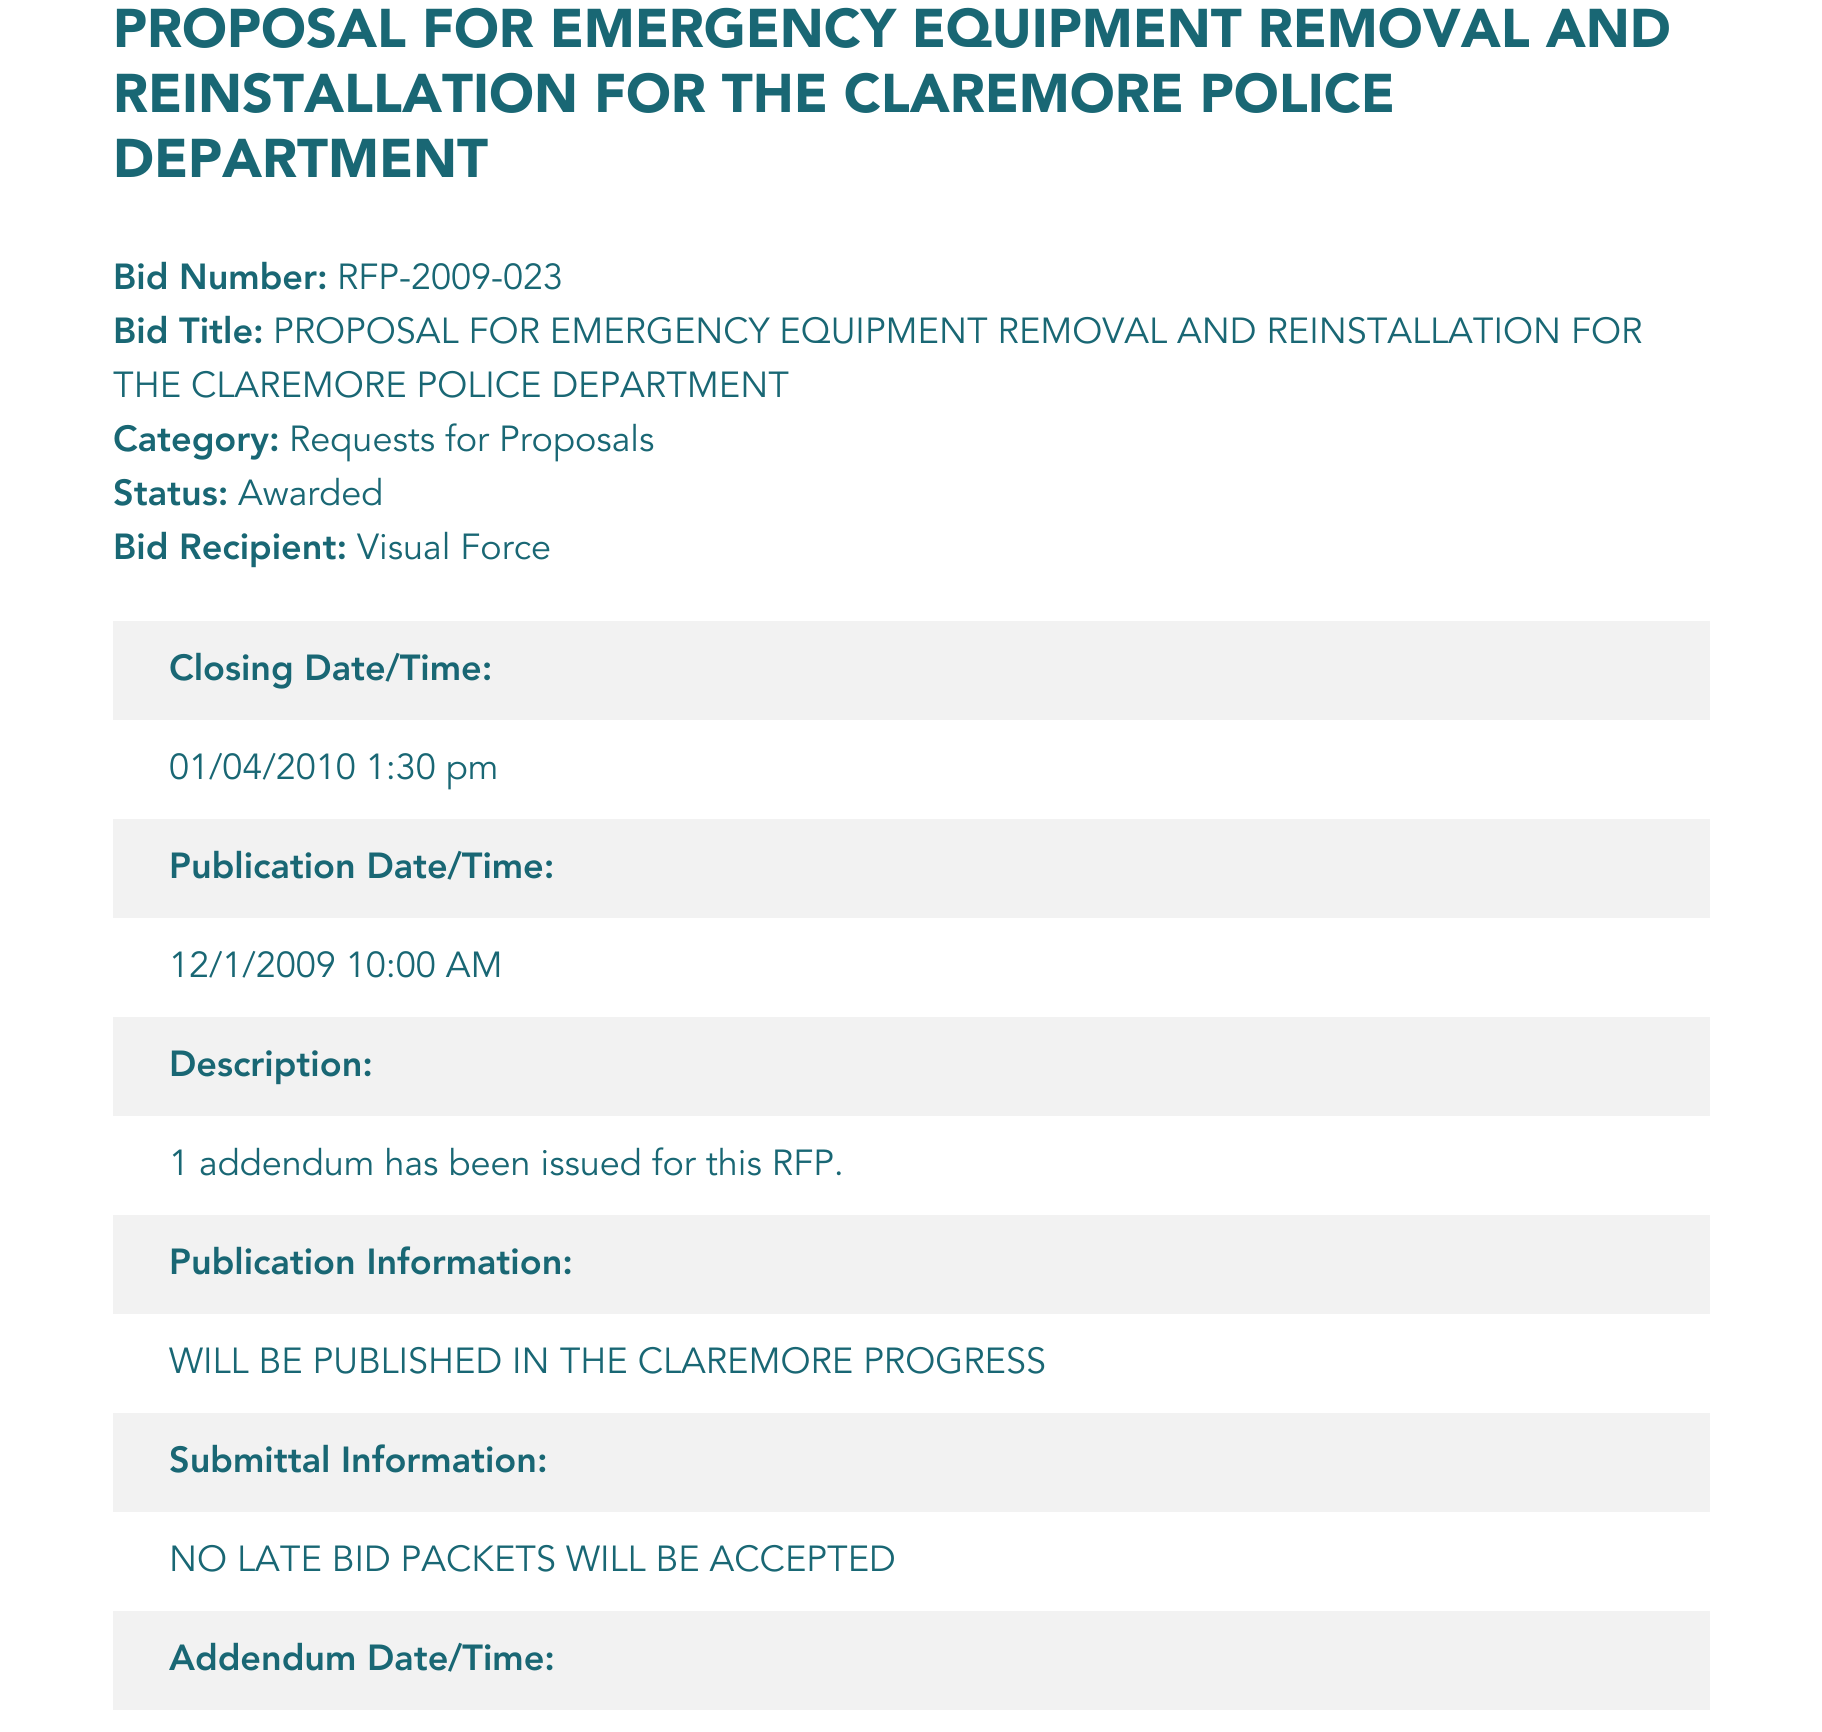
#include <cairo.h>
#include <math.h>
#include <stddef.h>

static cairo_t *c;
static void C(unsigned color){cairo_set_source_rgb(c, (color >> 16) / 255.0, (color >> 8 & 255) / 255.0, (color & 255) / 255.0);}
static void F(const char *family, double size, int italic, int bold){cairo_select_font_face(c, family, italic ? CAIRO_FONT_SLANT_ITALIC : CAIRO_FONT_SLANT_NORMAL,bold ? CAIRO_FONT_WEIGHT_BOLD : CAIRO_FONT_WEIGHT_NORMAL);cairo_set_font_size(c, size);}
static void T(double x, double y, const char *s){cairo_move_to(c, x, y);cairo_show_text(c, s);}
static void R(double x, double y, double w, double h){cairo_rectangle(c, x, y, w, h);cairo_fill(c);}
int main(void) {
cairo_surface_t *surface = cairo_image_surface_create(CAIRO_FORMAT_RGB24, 1822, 1732);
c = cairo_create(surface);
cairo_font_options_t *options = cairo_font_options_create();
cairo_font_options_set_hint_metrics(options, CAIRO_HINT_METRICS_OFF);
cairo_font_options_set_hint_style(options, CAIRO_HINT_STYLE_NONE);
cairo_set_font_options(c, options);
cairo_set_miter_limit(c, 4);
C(0xffffff);
cairo_paint(c);
F("Avenir Black",54,0,0);
C(0x196774);
T(113,47,"PROPOSAL FOR EMERGENCY EQUIPMENT REMOVAL AND");
T(113,112,"REINSTALLATION FOR THE CLAREMORE POLICE");
T(113,177,"DEPARTMENT");
F("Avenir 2 Black",36,0,0);
T(113,289,"Bid Number:");
F("Avenir",36,0,0);
T(337,289,"RFP-2009-023");
F("Avenir 2 Black",36,0,0);
T(113,343,"Bid Title:");
F("Avenir",36,0,0);
T(273,343,"PROPOSAL FOR EMERGENCY EQUIPMENT REMOVAL AND REINSTALLATION FOR");
T(113,397,"THE CLAREMORE POLICE DEPARTMENT");
F("Avenir 2 Black",36,0,0);
T(113,451,"Category:");
F("Avenir",36,0,0);
T(289,451,"Requests for Proposals");
F("Avenir 2 Black",36,0,0);
T(113,505,"Status:");
F("Avenir",36,0,0);
T(238,505,"Awarded");
F("Avenir 2 Black",36,0,0);
T(113,559,"Bid Recipient:");
F("Avenir",36,0,0);
T(357,559,"Visual Force");
C(0xf2f2f2);
R(113,621,1597,99);
F("Avenir 2 Black",36,0,0);
C(0x196774);
T(169,680,"Closing Date/Time:");
F("Avenir",36,0,0);
T(169,779,"01/04/2010 1:30 pm");
C(0xf2f2f2);
R(113,819,1597,99);
F("Avenir 2 Black",36,0,0);
C(0x196774);
T(169,878,"Publication Date/Time:");
F("Avenir",36,0,0);
T(169,977,"12/1/2009 10:00 AM");
C(0xf2f2f2);
R(113,1017,1597,99);
F("Avenir 2 Black",36,0,0);
C(0x196774);
T(169,1076,"Description:");
F("Avenir",36,0,0);
T(169,1175,"1 addendum has been issued for this RFP.");
C(0xf2f2f2);
R(113,1215,1597,99);
F("Avenir 2 Black",36,0,0);
C(0x196774);
T(169,1274,"Publication Information:");
F("Avenir",36,0,0);
T(169,1373,"WILL BE PUBLISHED IN THE CLAREMORE PROGRESS");
C(0xf2f2f2);
R(113,1413,1597,99);
F("Avenir 2 Black",36,0,0);
C(0x196774);
T(169,1472,"Submittal Information:");
F("Avenir",36,0,0);
T(169,1571,"NO LATE BID PACKETS WILL BE ACCEPTED");
C(0xf2f2f2);
R(113,1611,1597,99);
F("Avenir 2 Black",36,0,0);
C(0x196774);
T(169,1670,"Addendum Date/Time:");
cairo_surface_write_to_png(surface, "o.png");
cairo_font_options_destroy(options);
cairo_destroy(c);
cairo_surface_destroy(surface);
return 0;
}
